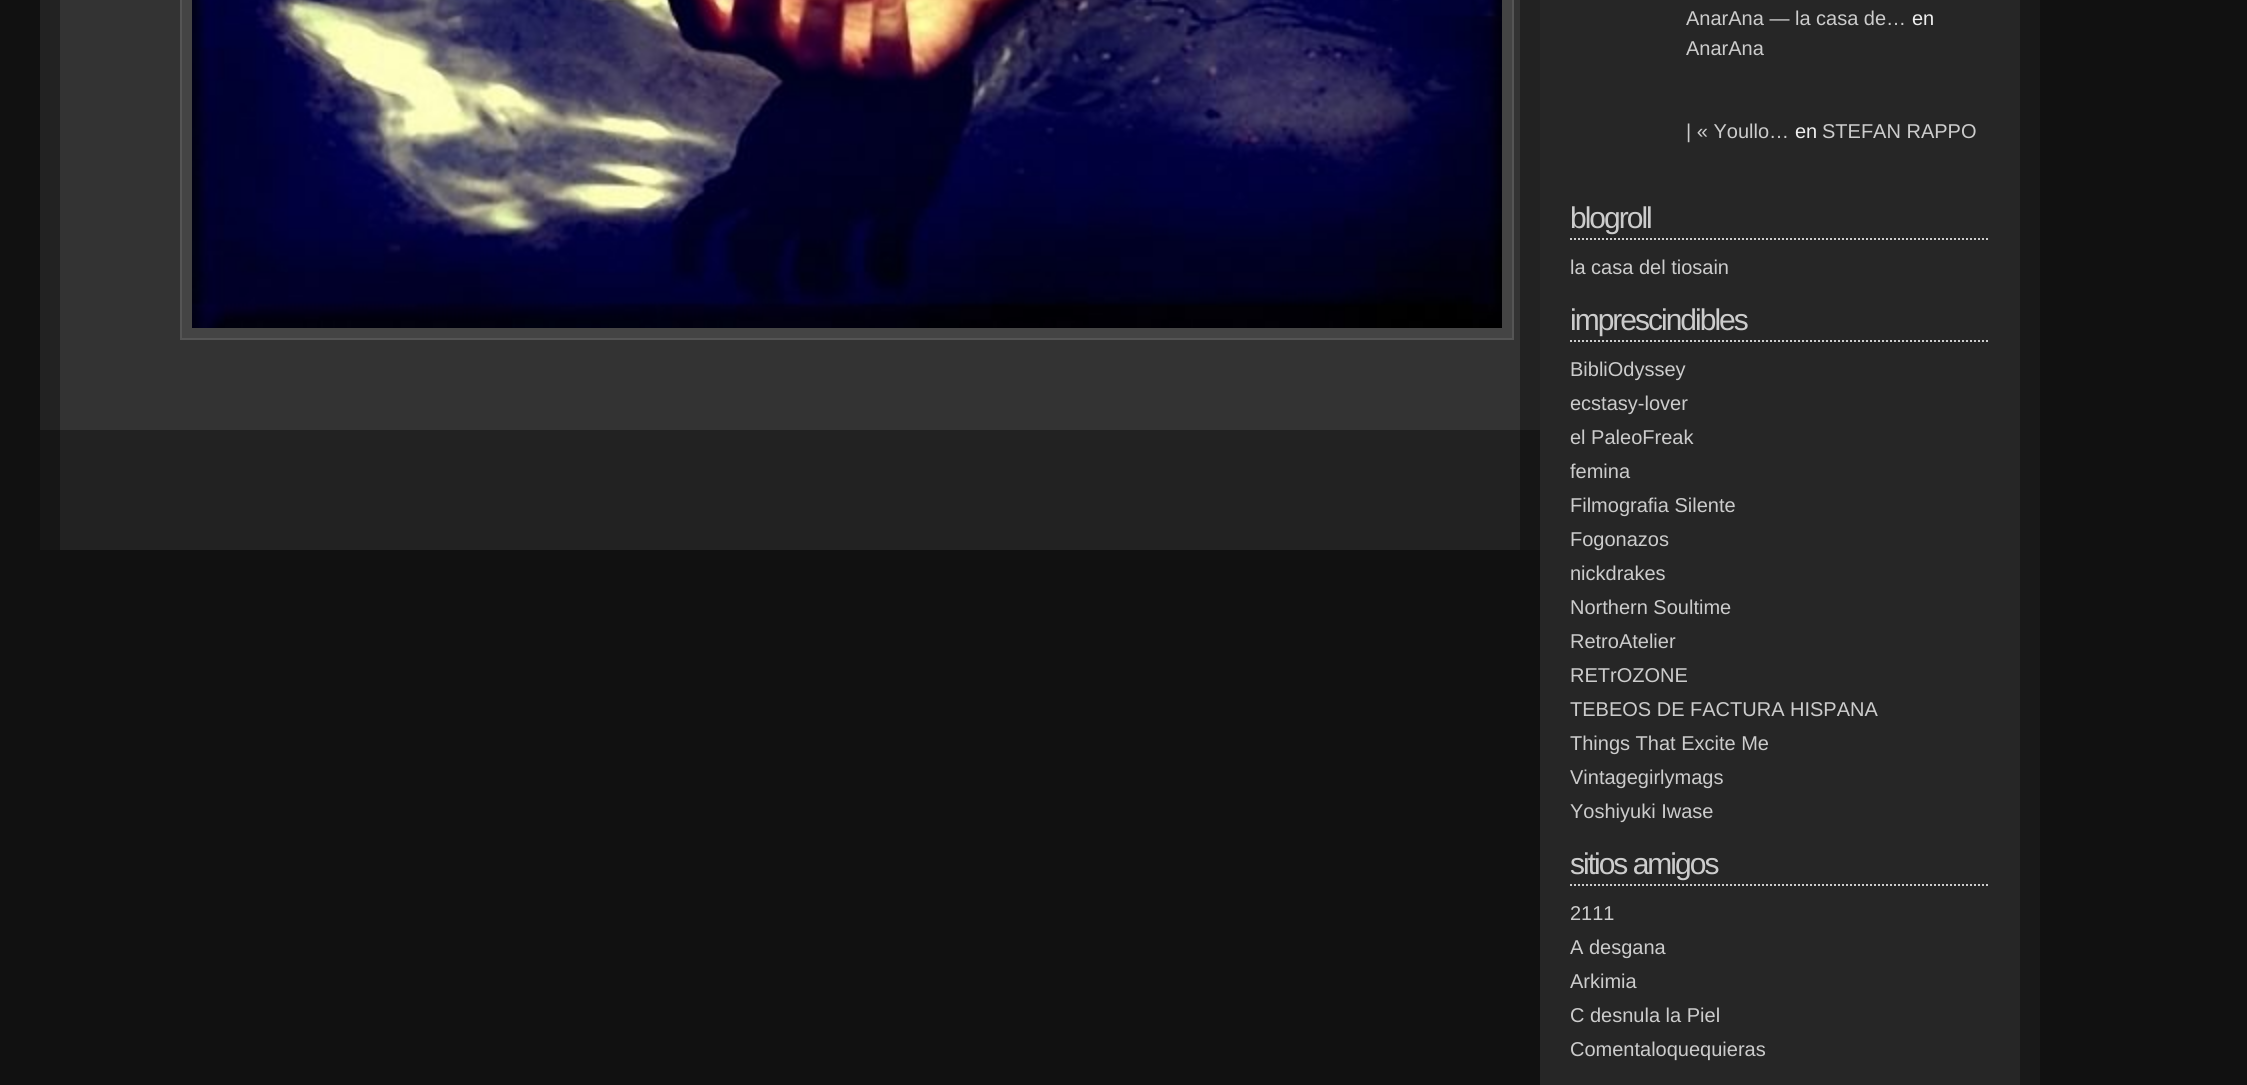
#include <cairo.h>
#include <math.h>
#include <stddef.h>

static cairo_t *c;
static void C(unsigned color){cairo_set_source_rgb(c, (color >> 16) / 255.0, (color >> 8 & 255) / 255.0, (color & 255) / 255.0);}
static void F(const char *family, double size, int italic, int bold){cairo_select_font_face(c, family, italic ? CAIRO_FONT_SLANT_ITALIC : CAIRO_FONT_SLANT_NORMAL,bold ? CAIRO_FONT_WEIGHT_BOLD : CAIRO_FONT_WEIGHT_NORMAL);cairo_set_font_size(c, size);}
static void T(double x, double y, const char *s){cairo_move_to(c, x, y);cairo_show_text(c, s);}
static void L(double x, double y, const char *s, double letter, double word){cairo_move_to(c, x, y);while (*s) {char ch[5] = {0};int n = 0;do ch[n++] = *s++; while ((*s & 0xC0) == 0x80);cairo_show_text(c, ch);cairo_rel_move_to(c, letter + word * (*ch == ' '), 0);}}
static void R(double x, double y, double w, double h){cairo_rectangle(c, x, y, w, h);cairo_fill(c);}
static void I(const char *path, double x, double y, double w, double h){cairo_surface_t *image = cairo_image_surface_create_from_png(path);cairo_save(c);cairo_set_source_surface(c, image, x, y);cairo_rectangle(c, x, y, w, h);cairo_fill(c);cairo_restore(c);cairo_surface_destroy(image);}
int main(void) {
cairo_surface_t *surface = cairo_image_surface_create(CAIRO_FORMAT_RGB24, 2247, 1085);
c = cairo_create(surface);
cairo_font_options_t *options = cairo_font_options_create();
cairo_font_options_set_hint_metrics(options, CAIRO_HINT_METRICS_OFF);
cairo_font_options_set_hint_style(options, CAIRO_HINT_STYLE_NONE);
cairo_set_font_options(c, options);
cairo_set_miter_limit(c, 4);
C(0x111111);
cairo_paint(c);
C(0x222222);
R(60,430,1460,120);
C(0x161616);
R(1520,430,20,120);
R(40,430,20,120);
C(0x333333);
R(60,0,1460,430);
C(0x222222);
R(1520,0,20,430);
R(40,0,20,430);
C(0x444444);
cairo_rectangle(c,181,-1,1332,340);
cairo_fill_preserve(c);
C(0x555555);
cairo_stroke(c);
I("1.png",192,0,1310,328);
C(0x262626);
R(1540,0,480,1085);
C(0x191919);
R(2020,0,20,1085);
F("Liberation Sans",20,0,0);
C(0xcccccc);
T(1686,25,"AnarAna — la casa de…");
C(0xeeeeee);
T(1912,25,"en");
C(0xcccccc);
T(1686,55,"AnarAna");
T(1686,138,"| « Youllo…");
C(0xeeeeee);
T(1795,138,"en");
C(0xcccccc);
T(1822,138,"STEFAN RAPPO");
cairo_new_path(c);
cairo_move_to(c,1570,239);
cairo_line_to(c,1990,239);
cairo_set_dash(c,(double[]){2,2},2,0);
cairo_stroke(c);
F("Liberation Sans",30,0,0);
L(1570,228,"blogroll",-2,0);
F("Liberation Sans",20,0,0);
T(1570,274,"la casa del tiosain");
cairo_new_path(c);
cairo_move_to(c,1570,341);
cairo_line_to(c,1990,341);
cairo_stroke(c);
F("Liberation Sans",30,0,0);
L(1570,330,"imprescindibles",-2,0);
F("Liberation Sans",20,0,0);
T(1570,376,"BibliOdyssey");
T(1570,410,"ecstasy-lover");
T(1570,444,"el PaleoFreak");
T(1570,478,"femina");
T(1570,512,"Filmografia Silente");
T(1570,546,"Fogonazos");
T(1570,580,"nickdrakes");
T(1570,614,"Northern Soultime");
T(1570,648,"RetroAtelier");
T(1570,682,"RETrOZONE");
T(1570,716,"TEBEOS DE FACTURA HISPANA");
T(1570,750,"Things That Excite Me");
T(1570,784,"Vintagegirlymags");
T(1570,818,"Yoshiyuki Iwase");
cairo_new_path(c);
cairo_move_to(c,1570,885);
cairo_line_to(c,1990,885);
cairo_stroke(c);
F("Liberation Sans",30,0,0);
L(1570,874,"sitios amigos",-2,0);
F("Liberation Sans",20,0,0);
T(1570,920,"2111");
T(1570,954,"A desgana");
T(1570,988,"Arkimia");
T(1570,1022,"C desnula la Piel");
T(1570,1056,"Comentaloquequieras");
cairo_surface_write_to_png(surface, "o.png");
cairo_font_options_destroy(options);
cairo_destroy(c);
cairo_surface_destroy(surface);
return 0;
}
